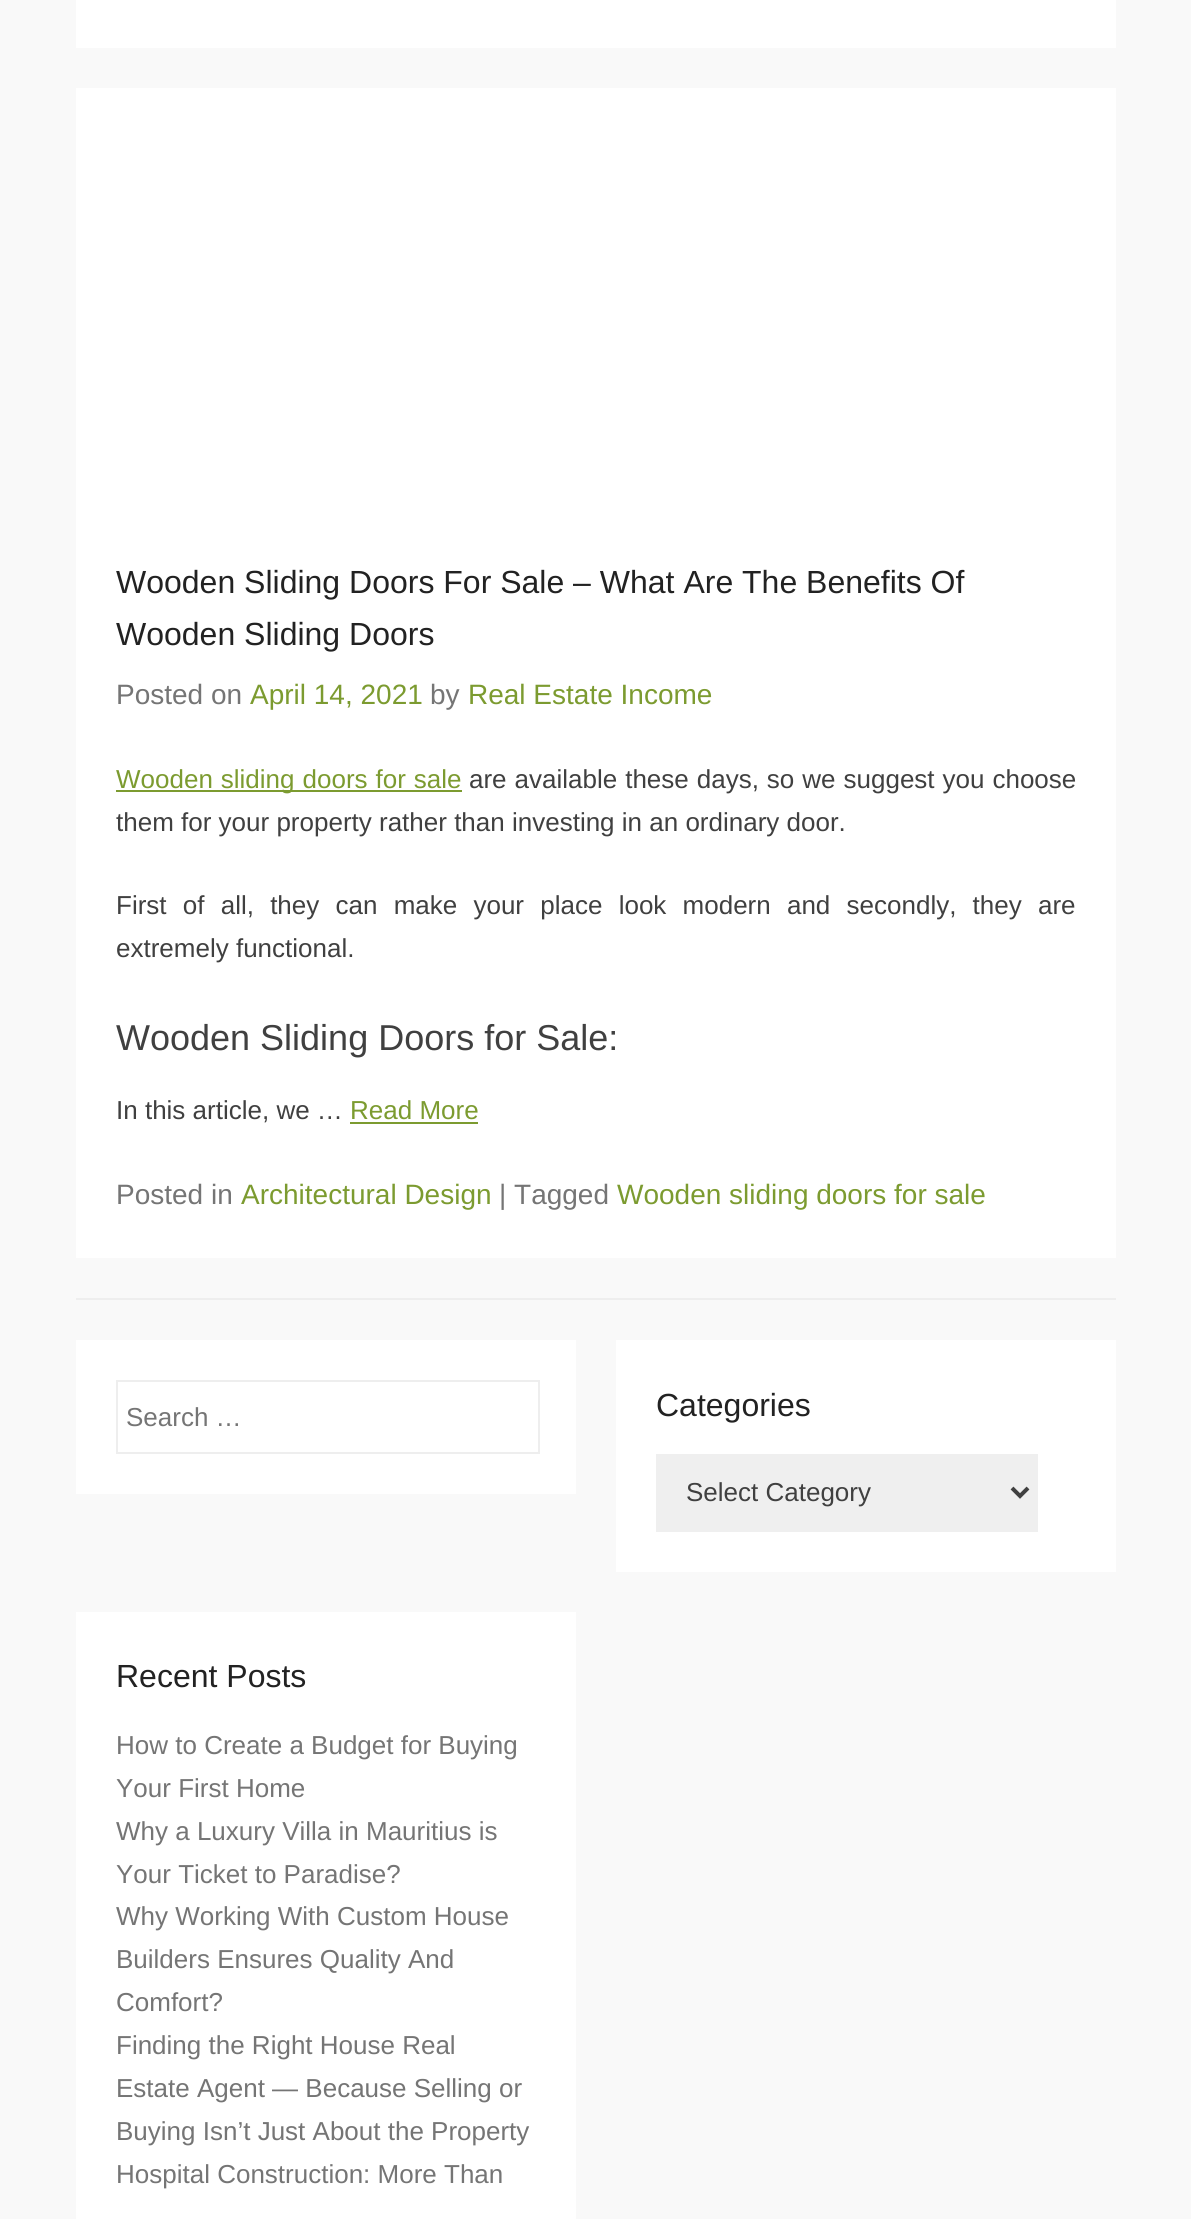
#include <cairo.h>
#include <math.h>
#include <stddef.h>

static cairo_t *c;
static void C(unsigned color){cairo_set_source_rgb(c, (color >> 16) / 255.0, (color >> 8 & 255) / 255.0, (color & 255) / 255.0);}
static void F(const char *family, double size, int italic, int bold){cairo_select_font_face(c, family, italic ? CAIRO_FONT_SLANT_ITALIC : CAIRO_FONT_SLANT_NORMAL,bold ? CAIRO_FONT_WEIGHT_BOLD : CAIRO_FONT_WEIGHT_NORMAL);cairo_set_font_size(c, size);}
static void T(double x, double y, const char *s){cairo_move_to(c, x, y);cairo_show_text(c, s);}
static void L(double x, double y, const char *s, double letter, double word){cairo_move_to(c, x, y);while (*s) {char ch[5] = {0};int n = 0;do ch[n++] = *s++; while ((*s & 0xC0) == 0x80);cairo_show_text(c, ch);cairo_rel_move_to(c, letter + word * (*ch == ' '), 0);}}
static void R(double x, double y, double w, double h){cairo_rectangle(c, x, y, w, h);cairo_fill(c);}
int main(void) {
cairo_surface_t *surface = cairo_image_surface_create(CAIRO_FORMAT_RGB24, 1191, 2219);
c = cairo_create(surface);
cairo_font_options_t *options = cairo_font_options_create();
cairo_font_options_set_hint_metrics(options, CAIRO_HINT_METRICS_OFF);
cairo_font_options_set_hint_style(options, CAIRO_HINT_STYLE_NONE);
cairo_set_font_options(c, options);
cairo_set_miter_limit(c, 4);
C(0xf9f9f9);
cairo_paint(c);
C(0xeeeeee);
R(76,1298,1040,2);
C(0xffffff);
R(76,0,1040,48);
R(76,88,1040,1170);
F("Liberation Sans",32,0,0);
C(0x222222);
T(116,593,"Wooden Sliding Doors For Sale – What Are The Benefits Of");
T(116,645,"Wooden Sliding Doors");
F("Liberation Sans",28,0,0);
C(0x757575);
T(116,704,"Posted on");
C(0x7c9b30);
T(250,704,"April 14, 2021");
C(0x757575);
T(430,704,"by");
C(0x7c9b30);
T(468,704,"Real Estate Income");
R(116,790,346,2);
F("Liberation Sans",26,0,0);
L(116,788,"Wooden sliding doors for sale",0,.75);
C(0x404040);
L(469,788,"are available these days, so we suggest you choose",0,.75);
T(116,831,"them for your property rather than investing in an ordinary door.");
L(116,914,"First of all, they can make your place look modern and secondly, they are",0,9);
T(116,957,"extremely functional.");
F("Liberation Sans",36,0,0);
T(116,1050,"Wooden Sliding Doors for Sale:");
F("Liberation Sans",26,0,0);
T(116,1119,"In this article, we …");
C(0x7c9b30);
T(350,1119,"Read More");
R(350,1122,128,2);
F("Liberation Sans",28,0,0);
C(0x757575);
T(116,1204,"Posted in");
C(0x7c9b30);
T(241,1204,"Architectural Design");
C(0x757575);
T(499,1204,"| Tagged");
C(0x7c9b30);
T(617,1204,"Wooden sliding doors for sale");
C(0xffffff);
R(76,1340,500,154);
cairo_rectangle(c,117,1381,422,72);
C(0xeeeeee);
cairo_stroke(c);
F("Liberation Sans",26,0,0);
C(0x757575);
T(126,1426,"Search …");
C(0xffffff);
R(616,1340,500,232);
F("Liberation Sans",32,0,0);
C(0x222222);
T(656,1416,"Categories");
C(0xefefef);
R(656,1454,382,78);
cairo_new_path(c);
cairo_move_to(c,1012,1488);
cairo_line_to(c,1020,1496);
cairo_line_to(c,1028,1488);
C(0x404040);
cairo_set_line_width(c,4);
cairo_stroke(c);
F("Liberation Sans",26,0,0);
T(686,1501,"Select Category");
C(0xffffff);
R(76,1612,500,607);
F("Liberation Sans",32,0,0);
C(0x222222);
T(116,1687,"Recent Posts");
F("Liberation Sans",26,0,0);
C(0x757575);
T(116,1754,"How to Create a Budget for Buying");
T(116,1797,"Your First Home");
T(116,1840,"Why a Luxury Villa in Mauritius is");
T(116,1883,"Your Ticket to Paradise?");
T(116,1925,"Why Working With Custom House");
T(116,1968,"Builders Ensures Quality And");
T(116,2011,"Comfort?");
T(116,2054,"Finding the Right House Real");
T(116,2097,"Estate Agent — Because Selling or");
T(116,2140,"Buying Isn’t Just About the Property");
T(116,2183,"Hospital Construction: More Than");
cairo_surface_write_to_png(surface, "o.png");
cairo_font_options_destroy(options);
cairo_destroy(c);
cairo_surface_destroy(surface);
return 0;
}
